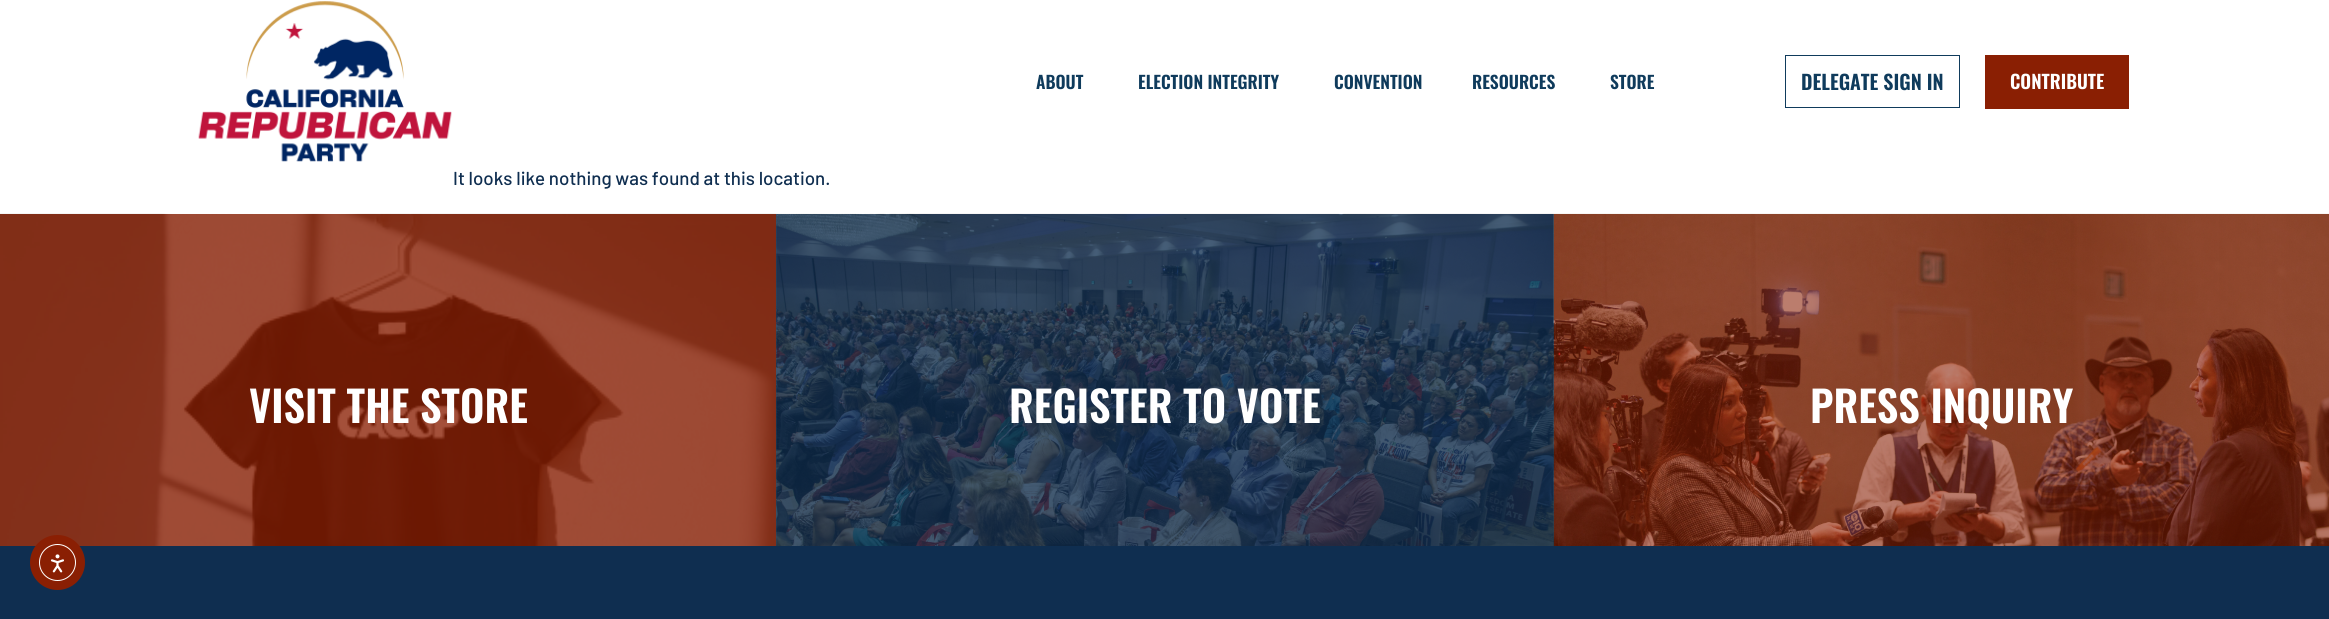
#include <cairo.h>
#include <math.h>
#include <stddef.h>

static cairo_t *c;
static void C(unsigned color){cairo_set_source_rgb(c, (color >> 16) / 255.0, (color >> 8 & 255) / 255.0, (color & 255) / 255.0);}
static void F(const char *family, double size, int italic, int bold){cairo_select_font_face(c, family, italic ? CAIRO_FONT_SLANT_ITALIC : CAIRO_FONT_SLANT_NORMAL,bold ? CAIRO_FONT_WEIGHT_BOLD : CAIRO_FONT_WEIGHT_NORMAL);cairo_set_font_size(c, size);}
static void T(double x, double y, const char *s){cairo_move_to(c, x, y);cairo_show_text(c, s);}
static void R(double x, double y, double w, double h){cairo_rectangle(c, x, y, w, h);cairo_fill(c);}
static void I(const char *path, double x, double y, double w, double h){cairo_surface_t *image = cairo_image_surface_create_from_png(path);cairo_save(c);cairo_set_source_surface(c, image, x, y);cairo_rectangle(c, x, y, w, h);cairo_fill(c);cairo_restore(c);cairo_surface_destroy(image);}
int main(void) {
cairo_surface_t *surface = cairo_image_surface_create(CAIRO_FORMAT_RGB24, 2329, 619);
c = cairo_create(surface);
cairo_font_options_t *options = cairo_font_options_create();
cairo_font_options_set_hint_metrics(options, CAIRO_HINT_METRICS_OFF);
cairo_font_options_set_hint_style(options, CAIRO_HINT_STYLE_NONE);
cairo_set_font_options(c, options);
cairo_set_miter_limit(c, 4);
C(0xffffff);
cairo_paint(c);
I("1.png",198,1,254,161);
F("Oswald SemiBold",17.5,0,0);
C(0x0f3b5c);
T(1036,89,"ABOUT");
T(1138,89,"ELECTION INTEGRITY");
T(1334,89,"CONVENTION");
T(1472,89,"RESOURCES");
T(1610,89,"STORE");
cairo_rectangle(c,1785.5,55.5,174,52);
cairo_set_line_width(c,1);
cairo_stroke(c);
F("Oswald SemiBold",20,0,0);
T(1801,90,"DELEGATE SIGN IN");
C(0x8a1f03);
R(1985,55,144,54);
F("Oswald SemiBold",18.75,0,0);
C(0xffffff);
T(2010,89,"CONTRIBUTE");
F("Barlow Medium",18.75,0,0);
C(0x0f2e50);
T(453,185,"It looks like nothing was found at this location.");
I("2.png",0,213,777,333);
F("Oswald SemiBold",42.5,0,0);
C(0xffffff);
T(249,423,"VISIT THE STORE");
I("3.png",776,213,778,333);
cairo_set_source_rgba(c,0.059,0.18,0.314,0.77);
R(776,214,778,332);
C(0xffffff);
T(1009,423,"REGISTER TO VOTE");
I("4.png",1553,213,776,333);
T(1810,423,"PRESS INQUIRY");
C(0x0f2e50);
R(0,546,2329,73);
C(0x8a1f03);
cairo_new_path(c);
cairo_arc(c,57.5,562.5,27.5,0,2 * M_PI);
cairo_fill(c);
cairo_arc(c,57.5,562.5,18,0,2 * M_PI);
C(0xffffff);
cairo_stroke(c);
I("5.png",50,554,14,19);
cairo_surface_write_to_png(surface, "o.png");
cairo_font_options_destroy(options);
cairo_destroy(c);
cairo_surface_destroy(surface);
return 0;
}
